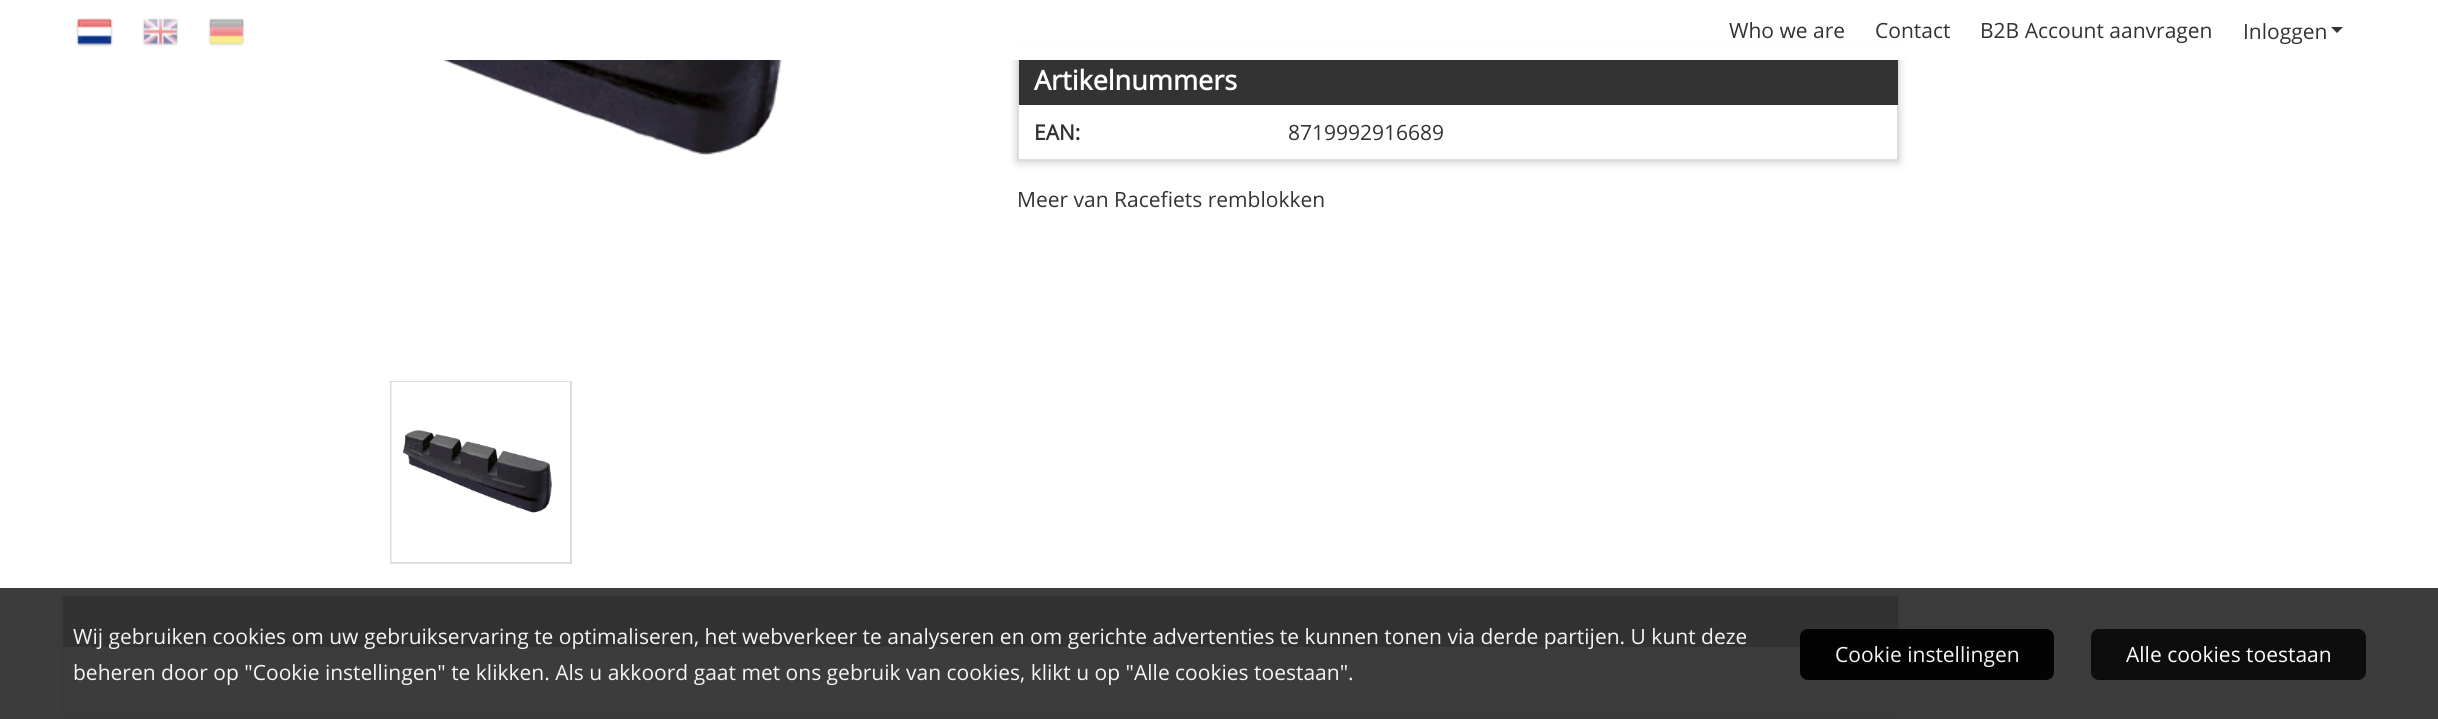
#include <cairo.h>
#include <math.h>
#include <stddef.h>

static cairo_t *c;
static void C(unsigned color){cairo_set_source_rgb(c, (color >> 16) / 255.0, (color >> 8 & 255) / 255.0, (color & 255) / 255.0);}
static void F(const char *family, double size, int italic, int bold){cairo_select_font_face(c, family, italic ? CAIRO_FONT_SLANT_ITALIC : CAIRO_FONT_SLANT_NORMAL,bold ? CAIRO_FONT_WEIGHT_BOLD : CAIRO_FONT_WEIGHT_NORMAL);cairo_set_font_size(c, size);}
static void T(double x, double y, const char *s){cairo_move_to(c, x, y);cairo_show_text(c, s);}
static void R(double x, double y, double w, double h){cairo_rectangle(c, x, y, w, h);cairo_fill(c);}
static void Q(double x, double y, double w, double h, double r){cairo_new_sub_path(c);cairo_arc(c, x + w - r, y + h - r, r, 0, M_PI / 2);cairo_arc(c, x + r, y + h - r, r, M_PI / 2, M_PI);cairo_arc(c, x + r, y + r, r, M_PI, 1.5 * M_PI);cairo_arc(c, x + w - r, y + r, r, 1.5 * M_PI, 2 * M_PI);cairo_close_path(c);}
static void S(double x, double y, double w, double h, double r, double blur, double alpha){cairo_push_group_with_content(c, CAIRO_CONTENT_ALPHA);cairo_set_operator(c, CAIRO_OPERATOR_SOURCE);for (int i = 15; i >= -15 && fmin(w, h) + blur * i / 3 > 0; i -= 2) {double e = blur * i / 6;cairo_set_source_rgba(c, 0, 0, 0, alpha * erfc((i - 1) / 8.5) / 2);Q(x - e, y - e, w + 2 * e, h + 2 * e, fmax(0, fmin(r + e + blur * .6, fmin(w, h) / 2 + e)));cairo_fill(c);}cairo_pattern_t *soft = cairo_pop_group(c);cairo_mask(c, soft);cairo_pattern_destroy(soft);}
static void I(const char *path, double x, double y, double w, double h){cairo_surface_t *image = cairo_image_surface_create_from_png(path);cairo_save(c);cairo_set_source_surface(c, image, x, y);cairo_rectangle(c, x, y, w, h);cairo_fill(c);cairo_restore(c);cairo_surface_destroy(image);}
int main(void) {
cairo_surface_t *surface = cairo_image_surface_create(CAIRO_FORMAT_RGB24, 2438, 719);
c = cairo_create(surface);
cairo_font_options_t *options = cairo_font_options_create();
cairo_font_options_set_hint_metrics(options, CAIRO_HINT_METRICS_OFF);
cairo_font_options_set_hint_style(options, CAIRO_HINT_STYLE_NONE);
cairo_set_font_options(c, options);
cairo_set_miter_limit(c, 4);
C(0xffffff);
cairo_paint(c);
C(0xcccccc);
S(1017,54,882,108,0,4.5,1);
C(0xffffff);
R(1019,105,878,54);
cairo_rectangle(c,1018,54,880,106);
C(0xdddddd);
cairo_stroke(c);
C(0xffffff);
R(1010,47,896,13);
I("1.png",76,18,37,29);
I("2.png",142,18,37,28);
I("3.png",208,18,37,28);
F("Open Sans",21,0,0);
C(0x333333);
T(1729,38,"Who we are");
T(1875,38,"Contact");
T(1980,38,"B2B Account aanvragen");
T(2243,39,"Inloggen");
cairo_new_path(c);
cairo_move_to(c,2331,27);
cairo_line_to(c,2337,33);
cairo_line_to(c,2343,27);
cairo_close_path(c);
cairo_fill(c);
I("4.png",301,60,484,96);
cairo_rectangle(c,391,382,180,181);
C(0xdddddd);
cairo_stroke(c);
I("5.png",391,382,179,180);
C(0x333333);
R(1019,60,879,45);
F("Open Sans",27,0,1);
C(0xffffff);
T(1034,90,"Artikelnummers");
F("Open Sans",21,0,1);
C(0x333333);
T(1034,140,"EAN:");
F("Open Sans",21,0,0);
T(1288,140,"8719992916689");
T(1017,207,"Meer van Racefiets remblokken");
cairo_save(c);
cairo_set_fill_rule(c,CAIRO_FILL_RULE_EVEN_ODD);
cairo_new_path(c);
cairo_move_to(c,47,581);
cairo_line_to(c,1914,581);
cairo_line_to(c,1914,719);
cairo_line_to(c,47,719);
cairo_close_path(c);
cairo_move_to(c,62,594);
cairo_line_to(c,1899,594);
cairo_line_to(c,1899,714);
cairo_line_to(c,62,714);
cairo_close_path(c);
cairo_clip(c);
C(0xcccccc);
S(62,596,1837,120,0,4.5,1);
cairo_restore(c);
cairo_rectangle(c,63,595,1835,118);
C(0xdddddd);
cairo_stroke(c);
C(0x333333);
R(63,596,1835,51);
cairo_set_source_rgba(c,0.2,0.2,0.2,0.95);
R(0,588,2438,131);
C(0xf5f5f5);
T(73,644,"Wij gebruiken cookies om uw gebruikservaring te optimaliseren, het webverkeer te analyseren en om gerichte advertenties te kunnen tonen via derde partijen. U kunt deze");
T(73,680,"beheren door op \"Cookie instellingen\" te klikken. Als u akkoord gaat met ons gebruik van cookies, klikt u op \"Alle cookies toestaan\".");
cairo_set_source_rgba(c,0,0,0,0.95);
Q(1800,629,254,51,8);
cairo_fill(c);
C(0xf5f5f5);
T(1835,662,"Cookie instellingen");
C(0x0d0d0d);
Q(2091,629,275,51,8);
cairo_fill(c);
C(0xffffff);
T(2126,662,"Alle cookies toestaan");
cairo_surface_write_to_png(surface, "o.png");
cairo_font_options_destroy(options);
cairo_destroy(c);
cairo_surface_destroy(surface);
return 0;
}
